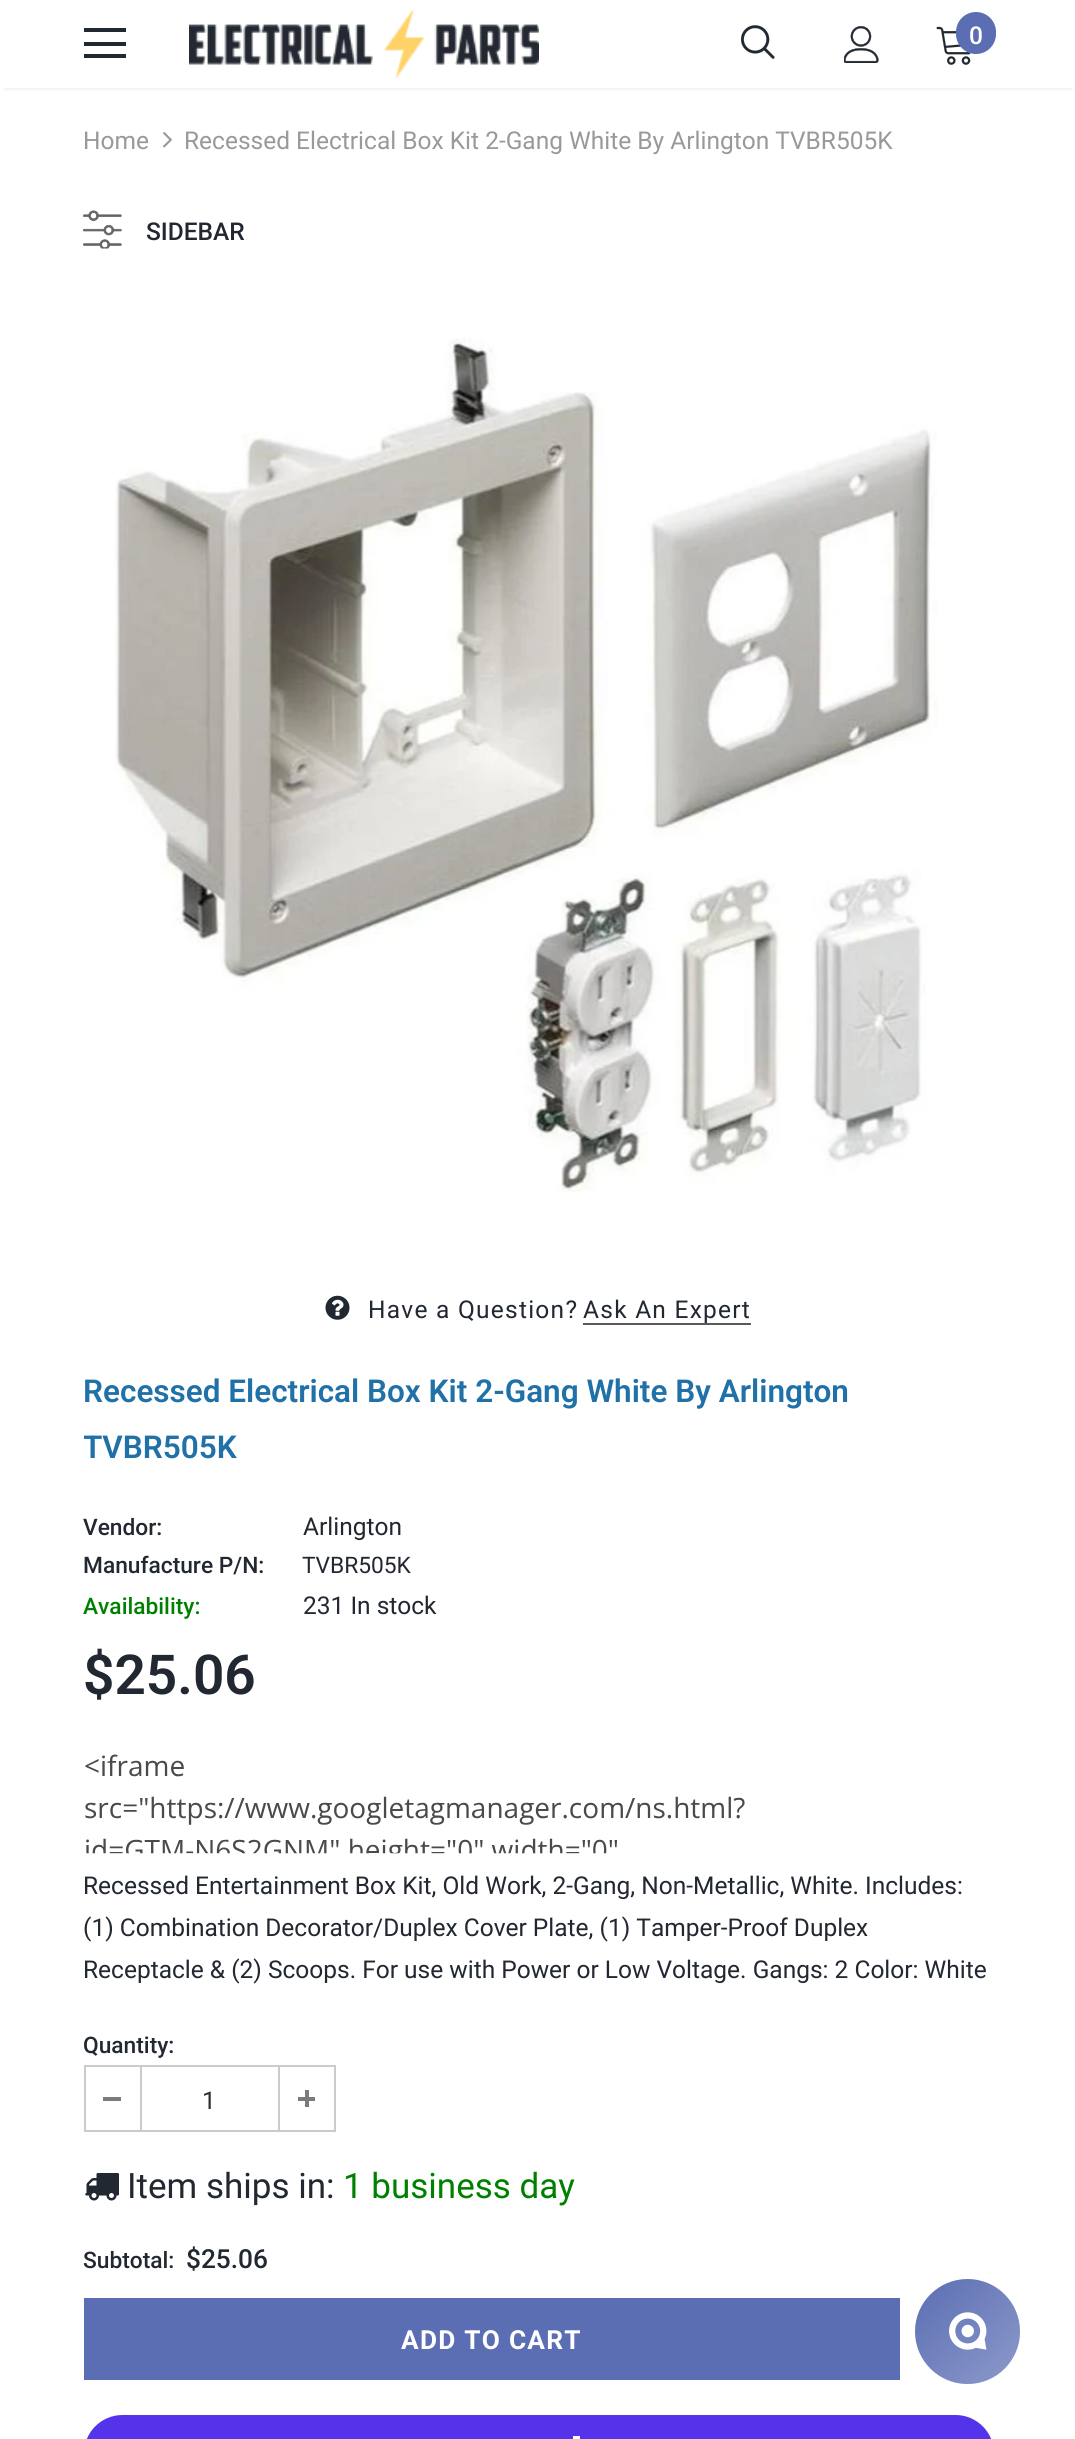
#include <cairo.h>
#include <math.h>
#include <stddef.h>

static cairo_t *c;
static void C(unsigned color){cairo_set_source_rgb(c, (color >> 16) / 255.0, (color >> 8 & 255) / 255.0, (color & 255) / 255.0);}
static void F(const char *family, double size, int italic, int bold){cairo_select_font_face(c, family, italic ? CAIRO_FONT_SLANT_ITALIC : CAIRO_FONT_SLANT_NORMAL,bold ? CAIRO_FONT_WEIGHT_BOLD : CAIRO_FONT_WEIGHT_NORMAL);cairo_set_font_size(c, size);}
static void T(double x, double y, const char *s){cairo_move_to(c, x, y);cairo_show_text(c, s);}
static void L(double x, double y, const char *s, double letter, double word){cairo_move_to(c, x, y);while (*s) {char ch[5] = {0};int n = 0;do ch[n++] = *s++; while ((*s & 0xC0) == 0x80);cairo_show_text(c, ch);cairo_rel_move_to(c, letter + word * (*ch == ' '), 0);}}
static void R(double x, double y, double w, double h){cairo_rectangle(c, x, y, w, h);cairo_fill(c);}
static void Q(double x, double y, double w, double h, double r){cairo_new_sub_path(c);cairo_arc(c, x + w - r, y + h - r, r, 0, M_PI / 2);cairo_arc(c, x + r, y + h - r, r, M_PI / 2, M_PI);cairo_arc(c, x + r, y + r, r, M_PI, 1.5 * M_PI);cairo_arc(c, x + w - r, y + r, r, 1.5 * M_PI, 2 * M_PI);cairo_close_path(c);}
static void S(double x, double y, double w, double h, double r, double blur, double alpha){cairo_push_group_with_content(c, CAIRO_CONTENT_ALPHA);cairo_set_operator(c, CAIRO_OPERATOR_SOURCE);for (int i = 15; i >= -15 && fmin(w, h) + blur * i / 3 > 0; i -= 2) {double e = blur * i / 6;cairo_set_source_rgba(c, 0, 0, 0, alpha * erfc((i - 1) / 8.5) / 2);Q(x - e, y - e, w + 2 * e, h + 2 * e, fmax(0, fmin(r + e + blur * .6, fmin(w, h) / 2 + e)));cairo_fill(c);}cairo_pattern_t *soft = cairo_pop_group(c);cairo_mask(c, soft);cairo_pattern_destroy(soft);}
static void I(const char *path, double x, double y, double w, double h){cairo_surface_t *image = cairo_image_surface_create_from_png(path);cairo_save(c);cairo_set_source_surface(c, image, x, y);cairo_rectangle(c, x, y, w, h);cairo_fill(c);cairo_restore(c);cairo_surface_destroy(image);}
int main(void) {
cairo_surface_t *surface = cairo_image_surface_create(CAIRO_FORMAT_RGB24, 1075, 2439);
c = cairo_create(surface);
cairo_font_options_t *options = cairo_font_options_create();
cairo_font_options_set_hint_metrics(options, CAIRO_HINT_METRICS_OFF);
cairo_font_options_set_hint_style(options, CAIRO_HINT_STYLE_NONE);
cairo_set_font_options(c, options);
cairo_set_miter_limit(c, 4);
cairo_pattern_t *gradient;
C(0xffffff);
cairo_paint(c);
C(0x000000);
S(5,11,1066,77,0,2.5,.12);
C(0xffffff);
R(2,8,1072,80);
C(0x222831);
R(84,28,42,4);
R(84,42,42,4);
R(84,54,42,4);
I("1.png",189,9,350,70);
I("2.png",740,25,35,34);
I("3.png",844,26,35,37);
I("4.png",936,26,35,39);
C(0x5b6eb3);
Q(956,12,40,42,20);
cairo_fill(c);
F("Roboto Medium",24.5,0,0);
C(0xffffff);
T(969,44,"0");
F("Roboto",24.5,0,0);
C(0x999999);
T(83,149,"Home");
I("5.png",163,132,9,16);
T(184,149,"Recessed Electrical Box Kit 2-Gang White By Arlington TVBR505K");
I("6.png",83,210,39,39);
F("Roboto Medium",24.5,0,0);
C(0x222831);
T(146,240,"SIDEBAR");
I("7.png",114,338,824,855);
I("8.png",325,1295,25,25);
F("Roboto",24.5,0,0);
L(368,1318,"Have a Question?",1.25,0);
L(583,1318,"Ask An Expert",1.25,0);
C(0x5a5a5a);
R(583,1323,168,2);
F("Roboto SemiBold",31.5,0,0);
C(0x2071a7);
T(83,1402,"Recessed Electrical Box Kit 2-Gang White By Arlington");
cairo_save(c);
cairo_rectangle(c,84,1363,910,112);
cairo_clip(c);
T(83,1458,"TVBR505K");
cairo_restore(c);
F("Roboto Medium",22.75,0,0);
C(0x222831);
T(83,1535,"Vendor:");
F("Roboto",24.5,0,0);
T(303,1535,"Arlington");
F("Roboto Medium",22.75,0,0);
T(83,1573,"Manufacture P/N:");
F("Roboto",22.75,0,0);
T(302,1573,"TVBR505K");
F("Roboto Medium",22.75,0,0);
C(0x008000);
T(83,1614,"Availability:");
F("Roboto",24.5,0,0);
C(0x222831);
T(303,1614,"231 In stock");
F("Roboto SemiBold",55,0,0);
T(83,1694,"$25.06");
I("9.png",85,1754,660,100);
F("Roboto",24.5,0,0);
T(83,1894,"Recessed Entertainment Box Kit, Old Work, 2-Gang, Non-Metallic, White. Includes:");
T(83,1936,"(1) Combination Decorator/Duplex Cover Plate, (1) Tamper-Proof Duplex");
T(83,1978,"Receptacle & (2) Scoops. For use with Power or Low Voltage. Gangs: 2 Color: White");
F("Roboto Medium",22.75,0,0);
T(83,2053,"Quantity:");
cairo_rectangle(c,85,2066,250,65);
C(0xcbcbcb);
cairo_stroke(c);
R(140,2067,2,63);
C(0x7b7b7b);
R(103,2097,18,4);
F("Roboto",24.5,0,0);
C(0x2d2d2d);
T(202,2109,"1");
C(0xcbcbcb);
R(278,2067,2,63);
C(0x7b7b7b);
R(298,2097,17,4);
R(305,2090,4,17);
I("10.png",85,2173,34,28);
F("Roboto",35,0,0);
C(0x222831);
T(127,2198,"Item ships in:");
C(0x008000);
T(343,2198,"1 business day");
F("Roboto Medium",22.75,0,0);
C(0x222831);
T(83,2268,"Subtotal:");
F("Roboto Medium",26.25,0,0);
T(186,2268,"$25.06");
C(0x5b6eb3);
R(84,2298,816,82);
F("Roboto",26.25,0,1);
C(0xffffff);
L(401,2349,"ADD TO CART",1.25,0);
C(0x5433eb);
Q(84,2415,910,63,38.5);
cairo_fill(c);
C(0xffffff);
R(573,2436,7,3);
C(0x5b6eb3);
cairo_arc(c,967.5,2331.5,52.5,0,2 * M_PI);
cairo_fill(c);
gradient = cairo_pattern_create_linear(1020,2384,915,2279);
cairo_pattern_add_color_stop_rgba(gradient,0,1,1,1,.3);
cairo_pattern_add_color_stop_rgba(gradient,1,1,1,1,0);
cairo_set_source(c,gradient);
cairo_pattern_destroy(gradient);
cairo_arc(c,967.5,2331.5,52.5,0,2 * M_PI);
cairo_fill(c);
I("11.png",949,2312,38,38);
cairo_surface_write_to_png(surface, "o.png");
cairo_font_options_destroy(options);
cairo_destroy(c);
cairo_surface_destroy(surface);
return 0;
}
